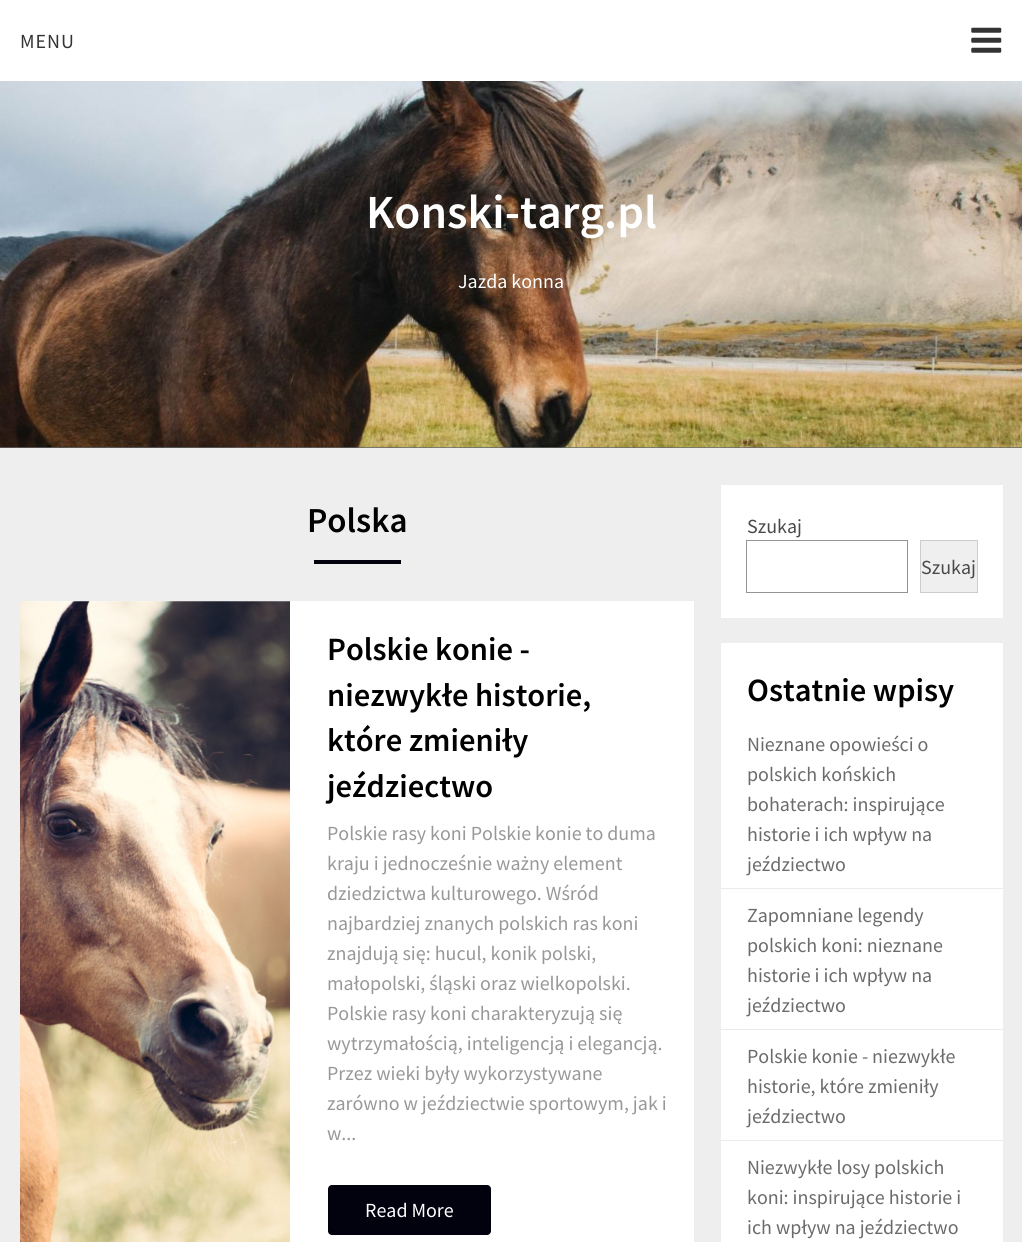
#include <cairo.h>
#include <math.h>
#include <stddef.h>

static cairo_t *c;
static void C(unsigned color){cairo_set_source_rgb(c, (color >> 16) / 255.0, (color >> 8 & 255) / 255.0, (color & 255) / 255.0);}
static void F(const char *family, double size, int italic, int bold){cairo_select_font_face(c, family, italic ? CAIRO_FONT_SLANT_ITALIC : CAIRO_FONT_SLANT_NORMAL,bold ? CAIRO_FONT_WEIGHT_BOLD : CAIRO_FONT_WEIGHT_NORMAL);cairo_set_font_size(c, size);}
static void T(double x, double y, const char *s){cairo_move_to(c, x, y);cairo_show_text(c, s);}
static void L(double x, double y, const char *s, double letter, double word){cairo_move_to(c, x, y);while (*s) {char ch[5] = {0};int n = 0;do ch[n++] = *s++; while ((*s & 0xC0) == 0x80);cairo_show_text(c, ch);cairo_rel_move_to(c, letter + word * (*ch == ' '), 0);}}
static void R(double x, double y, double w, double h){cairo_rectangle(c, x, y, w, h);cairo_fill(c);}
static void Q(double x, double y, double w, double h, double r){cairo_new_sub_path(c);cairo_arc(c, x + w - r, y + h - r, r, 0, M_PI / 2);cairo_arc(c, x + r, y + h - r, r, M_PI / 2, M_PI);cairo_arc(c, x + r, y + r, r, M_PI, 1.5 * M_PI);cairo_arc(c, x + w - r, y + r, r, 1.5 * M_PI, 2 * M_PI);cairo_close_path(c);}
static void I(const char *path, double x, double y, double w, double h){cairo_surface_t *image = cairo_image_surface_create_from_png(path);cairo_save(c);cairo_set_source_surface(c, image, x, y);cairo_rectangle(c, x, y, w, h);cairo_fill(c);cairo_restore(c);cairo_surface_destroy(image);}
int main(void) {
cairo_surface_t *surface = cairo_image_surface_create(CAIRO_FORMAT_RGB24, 1022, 1242);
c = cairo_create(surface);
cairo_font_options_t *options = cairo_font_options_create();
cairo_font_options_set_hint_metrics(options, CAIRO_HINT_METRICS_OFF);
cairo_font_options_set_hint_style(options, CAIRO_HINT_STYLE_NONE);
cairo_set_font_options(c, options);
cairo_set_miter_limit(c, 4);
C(0xeeeeee);
cairo_paint(c);
C(0x333333);
R(0,447,1022,1);
I("1.png",0,81,1022,367);
C(0xffffff);
R(0,0,1022,81);
F("Source Sans Pro",20,0,0);
C(0x333333);
L(20,48,"MENU",1,0);
I("2.png",971,27,31,26);
F("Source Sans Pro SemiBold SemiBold",47.5,0,0);
C(0xffffff);
T(366,228,"Konski-targ.pl");
F("Source Sans Pro",20,0,0);
T(458,288,"Jazda konna");
F("Source Sans Pro SemiBold SemiBold",35,0,0);
C(0x000000);
T(307,532,"Polska");
C(0x02020f);
R(314,560,87,4);
C(0xffffff);
R(20,601,674,641);
I("3.png",20,601,270,641);
F("Source Sans Pro SemiBold SemiBold",32.5,0,0);
C(0x000000);
T(327,660,"Polskie konie -");
T(327,706,"niezwykłe historie,");
T(327,751,"które zmieniły");
T(327,797,"jeździectwo");
F("Source Sans Pro",20,0,0);
C(0x989898);
T(327,840,"Polskie rasy koni Polskie konie to duma");
T(327,870,"kraju i jednocześnie ważny element");
T(327,900,"dziedzictwa kulturowego. Wśród");
T(327,930,"najbardziej znanych polskich ras koni");
T(327,960,"znajdują się: hucul, konik polski,");
T(327,990,"małopolski, śląski oraz wielkopolski.");
T(327,1020,"Polskie rasy koni charakteryzują się");
T(327,1050,"wytrzymałością, inteligencją i elegancją.");
T(327,1080,"Przez wieki były wykorzystywane");
T(327,1110,"zarówno w jeździectwie sportowym, jak i");
T(327,1140,"w...");
C(0x02020f);
Q(328,1185,163,50,4);
cairo_fill(c);
C(0xffffff);
T(365,1217,"Read More");
R(721,485,282,133);
C(0x4a4a4a);
T(747,533,"Szukaj");
cairo_rectangle(c,746.5,540.5,161,52);
C(0x949494);
cairo_set_line_width(c,1);
cairo_stroke(c);
C(0xefefef);
cairo_rectangle(c,920.5,540.5,57,52);
cairo_fill_preserve(c);
C(0xcccccc);
cairo_stroke(c);
C(0x4a4a4a);
T(921,574,"Szukaj");
C(0xffffff);
R(721,643,282,599);
F("Source Sans Pro SemiBold SemiBold",32.5,0,0);
C(0x000000);
T(747,701,"Ostatnie wpisy");
C(0xebebeb);
R(721,888,282,1);
F("Source Sans Pro",20,0,0);
C(0x6b6b6b);
T(747,751,"Nieznane opowieści o");
T(747,781,"polskich końskich");
T(747,811,"bohaterach: inspirujące");
T(747,841,"historie i ich wpływ na");
T(747,871,"jeździectwo");
C(0xebebeb);
R(721,1029,282,1);
C(0x6b6b6b);
T(747,922,"Zapomniane legendy");
T(747,952,"polskich koni: nieznane");
T(747,982,"historie i ich wpływ na");
T(747,1012,"jeździectwo");
C(0xebebeb);
R(721,1140,282,1);
C(0x6b6b6b);
T(747,1063,"Polskie konie - niezwykłe");
T(747,1093,"historie, które zmieniły");
T(747,1123,"jeździectwo");
T(747,1174,"Niezwykłe losy polskich");
T(747,1204,"koni: inspirujące historie i");
T(747,1234,"ich wpływ na jeździectwo");
cairo_surface_write_to_png(surface, "o.png");
cairo_font_options_destroy(options);
cairo_destroy(c);
cairo_surface_destroy(surface);
return 0;
}
